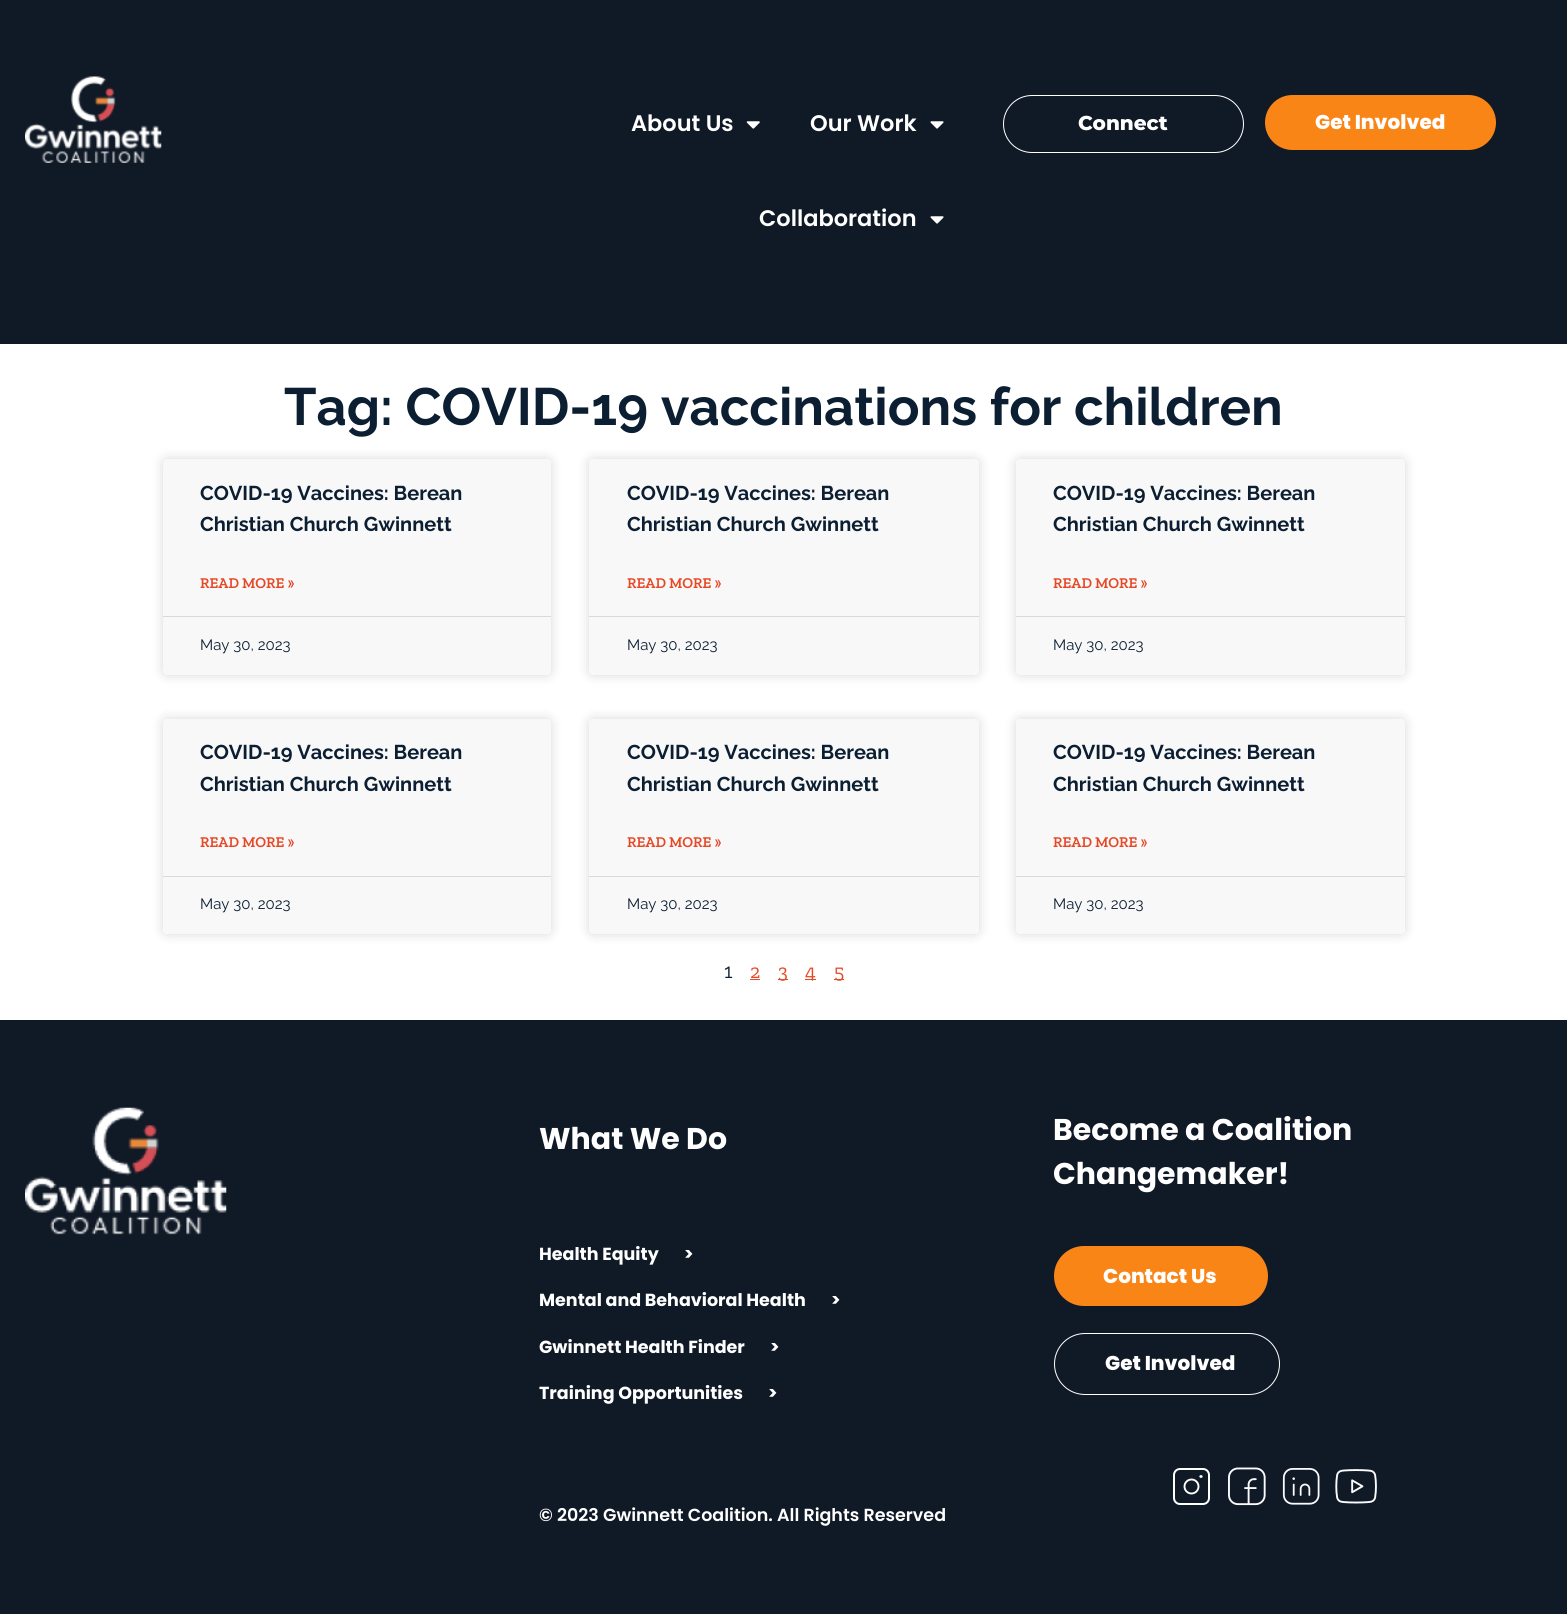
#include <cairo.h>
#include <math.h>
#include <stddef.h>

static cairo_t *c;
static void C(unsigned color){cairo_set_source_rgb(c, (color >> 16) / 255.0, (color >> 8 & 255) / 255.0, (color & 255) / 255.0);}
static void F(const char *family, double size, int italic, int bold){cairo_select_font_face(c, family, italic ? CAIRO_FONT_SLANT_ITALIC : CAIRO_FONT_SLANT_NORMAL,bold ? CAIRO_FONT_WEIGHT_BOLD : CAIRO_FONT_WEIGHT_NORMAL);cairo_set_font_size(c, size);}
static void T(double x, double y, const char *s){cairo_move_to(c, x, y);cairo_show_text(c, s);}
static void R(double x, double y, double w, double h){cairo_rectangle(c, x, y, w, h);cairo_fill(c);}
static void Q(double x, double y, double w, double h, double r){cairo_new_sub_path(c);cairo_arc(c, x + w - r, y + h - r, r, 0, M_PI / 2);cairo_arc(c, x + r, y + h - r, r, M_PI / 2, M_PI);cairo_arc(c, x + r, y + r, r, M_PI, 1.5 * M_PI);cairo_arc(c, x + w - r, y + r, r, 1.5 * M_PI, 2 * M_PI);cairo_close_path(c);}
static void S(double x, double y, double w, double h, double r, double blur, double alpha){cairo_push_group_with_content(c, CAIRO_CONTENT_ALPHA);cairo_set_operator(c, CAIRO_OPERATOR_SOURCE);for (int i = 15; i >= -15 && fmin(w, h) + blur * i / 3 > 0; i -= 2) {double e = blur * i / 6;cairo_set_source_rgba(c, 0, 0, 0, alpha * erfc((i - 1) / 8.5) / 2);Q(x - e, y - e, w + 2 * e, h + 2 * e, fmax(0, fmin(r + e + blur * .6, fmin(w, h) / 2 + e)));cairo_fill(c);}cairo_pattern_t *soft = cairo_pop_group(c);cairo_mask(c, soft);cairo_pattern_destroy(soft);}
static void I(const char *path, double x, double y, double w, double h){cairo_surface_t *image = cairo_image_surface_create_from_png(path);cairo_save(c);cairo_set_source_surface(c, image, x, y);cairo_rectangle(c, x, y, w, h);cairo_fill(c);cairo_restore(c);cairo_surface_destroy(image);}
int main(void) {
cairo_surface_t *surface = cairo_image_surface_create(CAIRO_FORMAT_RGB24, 1567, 1621);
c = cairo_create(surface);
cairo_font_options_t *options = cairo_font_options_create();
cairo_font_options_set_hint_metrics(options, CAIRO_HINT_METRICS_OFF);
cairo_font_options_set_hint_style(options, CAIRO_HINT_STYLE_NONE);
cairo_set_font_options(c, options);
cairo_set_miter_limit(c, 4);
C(0xffffff);
cairo_paint(c);
C(0x101926);
R(0,0,1567,344);
I("1.png",25,76,137,87);
F("Poppins SemiBold",22.5,0,0);
C(0xffffff);
T(631,131,"About Us");
I("2.png",746,121,14,8);
T(810,131,"Our Work");
I("3.png",930,121,14,8);
T(759,226,"Collaboration");
I("3.png",930,216,14,8);
Q(1003.5,95.5,240,57,28.5);
cairo_set_line_width(c,1);
cairo_stroke(c);
F("Montserrat ExtraBold",20,0,0);
T(1078,130,"Connect");
C(0xfa8517);
Q(1265,95,231,55,27.5);
cairo_fill(c);
F("Poppins ExtraBold",20,0,0);
C(0xffffff);
T(1315,129,"Get Involved");
F("Raleway",52.5,0,1);
C(0x0b1e32);
T(284,425,"Tag: COVID-19 vaccinations for children");
C(0x000000);
S(163,459,388,216,4,6,.15);
C(0xf8f8f8);
Q(163,459,388,216,4);
cairo_fill(c);
F("Raleway",20,0,1);
C(0x0b1e32);
T(200,500,"COVID-19 Vaccines: Berean");
T(200,531,"Christian Church Gwinnett");
F("Zilla Slab SemiBold",15,0,0);
C(0xe64826);
T(200,588,"READ MORE »");
C(0xd9d9d9);
R(163,616,388,1);
F("Raleway",15,0,0);
C(0x0b1e32);
T(200,650,"May 30, 2023");
cairo_save(c);
cairo_set_fill_rule(c,CAIRO_FILL_RULE_EVEN_ODD);
cairo_new_path(c);
cairo_move_to(c,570,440);
cairo_line_to(c,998,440);
cairo_line_to(c,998,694);
cairo_line_to(c,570,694);
cairo_close_path(c);
cairo_move_to(c,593,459);
cairo_line_to(c,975,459);
cairo_curve_to(c,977,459,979,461,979,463);
cairo_line_to(c,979,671);
cairo_curve_to(c,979,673,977,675,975,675);
cairo_line_to(c,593,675);
cairo_curve_to(c,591,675,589,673,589,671);
cairo_line_to(c,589,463);
cairo_curve_to(c,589,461,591,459,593,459);
cairo_close_path(c);
cairo_clip(c);
C(0x000000);
S(589,459,390,216,4,6,.15);
cairo_restore(c);
cairo_set_source_rgba(c,0.851,0.851,0.851,0.19);
Q(589,459,390,216,4);
cairo_fill(c);
F("Raleway",20,0,1);
C(0x0b1e32);
T(627,500,"COVID-19 Vaccines: Berean");
T(627,531,"Christian Church Gwinnett");
F("Zilla Slab SemiBold",15,0,0);
C(0xe64826);
T(627,588,"READ MORE »");
C(0xd9d9d9);
R(589,616,390,1);
F("Raleway",15,0,0);
C(0x0b1e32);
T(627,650,"May 30, 2023");
cairo_save(c);
cairo_set_fill_rule(c,CAIRO_FILL_RULE_EVEN_ODD);
cairo_new_path(c);
cairo_move_to(c,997,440);
cairo_line_to(c,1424,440);
cairo_line_to(c,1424,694);
cairo_line_to(c,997,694);
cairo_close_path(c);
cairo_move_to(c,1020,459);
cairo_line_to(c,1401,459);
cairo_curve_to(c,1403,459,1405,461,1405,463);
cairo_line_to(c,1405,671);
cairo_curve_to(c,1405,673,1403,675,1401,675);
cairo_line_to(c,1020,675);
cairo_curve_to(c,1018,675,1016,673,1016,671);
cairo_line_to(c,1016,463);
cairo_curve_to(c,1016,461,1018,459,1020,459);
cairo_close_path(c);
cairo_clip(c);
C(0x000000);
S(1016,459,389,216,4,6,.15);
cairo_restore(c);
cairo_set_source_rgba(c,0.851,0.851,0.851,0.19);
Q(1016,459,389,216,4);
cairo_fill(c);
F("Raleway",20,0,1);
C(0x0b1e32);
T(1053,500,"COVID-19 Vaccines: Berean");
T(1053,531,"Christian Church Gwinnett");
F("Zilla Slab SemiBold",15,0,0);
C(0xe64826);
T(1053,588,"READ MORE »");
C(0xd9d9d9);
R(1016,616,389,1);
F("Raleway",15,0,0);
C(0x0b1e32);
T(1053,650,"May 30, 2023");
cairo_save(c);
cairo_set_fill_rule(c,CAIRO_FILL_RULE_EVEN_ODD);
cairo_new_path(c);
cairo_move_to(c,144,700);
cairo_line_to(c,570,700);
cairo_line_to(c,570,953);
cairo_line_to(c,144,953);
cairo_close_path(c);
cairo_move_to(c,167,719);
cairo_line_to(c,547,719);
cairo_curve_to(c,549,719,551,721,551,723);
cairo_line_to(c,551,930);
cairo_curve_to(c,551,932,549,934,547,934);
cairo_line_to(c,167,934);
cairo_curve_to(c,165,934,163,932,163,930);
cairo_line_to(c,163,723);
cairo_curve_to(c,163,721,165,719,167,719);
cairo_close_path(c);
cairo_clip(c);
C(0x000000);
S(163,719,388,215,4,6,.15);
cairo_restore(c);
cairo_set_source_rgba(c,0.851,0.851,0.851,0.19);
Q(163,719,388,215,4);
cairo_fill(c);
F("Raleway",20,0,1);
C(0x0b1e32);
T(200,759,"COVID-19 Vaccines: Berean");
T(200,791,"Christian Church Gwinnett");
F("Zilla Slab SemiBold",15,0,0);
C(0xe64826);
T(200,847,"READ MORE »");
C(0xd9d9d9);
R(163,876,388,1);
F("Raleway",15,0,0);
C(0x0b1e32);
T(200,909,"May 30, 2023");
cairo_save(c);
cairo_set_fill_rule(c,CAIRO_FILL_RULE_EVEN_ODD);
cairo_new_path(c);
cairo_move_to(c,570,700);
cairo_line_to(c,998,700);
cairo_line_to(c,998,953);
cairo_line_to(c,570,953);
cairo_close_path(c);
cairo_move_to(c,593,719);
cairo_line_to(c,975,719);
cairo_curve_to(c,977,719,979,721,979,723);
cairo_line_to(c,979,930);
cairo_curve_to(c,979,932,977,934,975,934);
cairo_line_to(c,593,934);
cairo_curve_to(c,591,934,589,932,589,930);
cairo_line_to(c,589,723);
cairo_curve_to(c,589,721,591,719,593,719);
cairo_close_path(c);
cairo_clip(c);
C(0x000000);
S(589,719,390,215,4,6,.15);
cairo_restore(c);
cairo_set_source_rgba(c,0.851,0.851,0.851,0.19);
Q(589,719,390,215,4);
cairo_fill(c);
F("Raleway",20,0,1);
C(0x0b1e32);
T(627,759,"COVID-19 Vaccines: Berean");
T(627,791,"Christian Church Gwinnett");
F("Zilla Slab SemiBold",15,0,0);
C(0xe64826);
T(627,847,"READ MORE »");
C(0xd9d9d9);
R(589,876,390,1);
F("Raleway",15,0,0);
C(0x0b1e32);
T(627,909,"May 30, 2023");
cairo_save(c);
cairo_set_fill_rule(c,CAIRO_FILL_RULE_EVEN_ODD);
cairo_new_path(c);
cairo_move_to(c,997,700);
cairo_line_to(c,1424,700);
cairo_line_to(c,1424,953);
cairo_line_to(c,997,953);
cairo_close_path(c);
cairo_move_to(c,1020,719);
cairo_line_to(c,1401,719);
cairo_curve_to(c,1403,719,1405,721,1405,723);
cairo_line_to(c,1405,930);
cairo_curve_to(c,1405,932,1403,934,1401,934);
cairo_line_to(c,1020,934);
cairo_curve_to(c,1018,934,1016,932,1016,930);
cairo_line_to(c,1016,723);
cairo_curve_to(c,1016,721,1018,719,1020,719);
cairo_close_path(c);
cairo_clip(c);
C(0x000000);
S(1016,719,389,215,4,6,.15);
cairo_restore(c);
cairo_set_source_rgba(c,0.851,0.851,0.851,0.19);
Q(1016,719,389,215,4);
cairo_fill(c);
F("Raleway",20,0,1);
C(0x0b1e32);
T(1053,759,"COVID-19 Vaccines: Berean");
T(1053,791,"Christian Church Gwinnett");
F("Zilla Slab SemiBold",15,0,0);
C(0xe64826);
T(1053,847,"READ MORE »");
C(0xd9d9d9);
R(1016,876,389,1);
F("Raleway",15,0,0);
C(0x0b1e32);
T(1053,909,"May 30, 2023");
F("Raleway",20,0,0);
T(724,978,"1");
F("Zilla Slab",20,0,0);
C(0xe64826);
T(750,978,"2");
R(750,979,10,1);
R(778,979,10,1);
T(778,978,"3");
R(805,979,11,1);
T(805,978,"4");
R(834,979,10,1);
T(834,978,"5");
C(0x101926);
R(0,1020,1567,594);
I("4.png",25,1107,202,128);
F("Poppins",30,0,1);
C(0xffffff);
T(539,1149,"What We Do");
F("Poppins",17.5,0,1);
T(539,1260,"Health Equity");
T(684,1260,">");
T(539,1306,"Mental and Behavioral Health");
T(831,1306,">");
T(539,1353,"Gwinnett Health Finder");
T(770,1353,">");
T(539,1399,"Training Opportunities");
T(768,1399,">");
F("Poppins SemiBold",17.5,0,0);
T(539,1521,"© 2023 Gwinnett Coalition. All Rights Reserved");
F("Poppins",30,0,1);
T(1053,1140,"Become a Coalition");
T(1053,1184,"Changemaker!");
C(0xfa8517);
Q(1054,1246,214,60,30);
cairo_fill(c);
F("Poppins ExtraBold",20,0,0);
C(0xffffff);
T(1103,1283,"Contact Us");
Q(1054.5,1333.5,225,61,30.5);
cairo_stroke(c);
T(1105,1370,"Get Involved");
Q(1174,1469,35,35,6);
cairo_set_line_width(c,2);
cairo_stroke(c);
cairo_new_path(c);
cairo_move_to(c,1201,1476);
cairo_curve_to(c,1200,1476,1200,1477,1201,1477);
cairo_curve_to(c,1202,1477,1202,1476,1201,1476);
cairo_set_line_width(c,1.9);
cairo_set_line_cap(c,CAIRO_LINE_CAP_ROUND);
cairo_set_line_join(c,CAIRO_LINE_JOIN_ROUND);
cairo_stroke(c);
cairo_arc(c,1191.5,1486.5,7,0,2 * M_PI);
cairo_set_line_cap(c,CAIRO_LINE_CAP_BUTT);
cairo_set_line_join(c,CAIRO_LINE_JOIN_MITER);
cairo_stroke(c);
I("5.png",1228,1467,38,39);
I("6.png",1282,1468,38,37);
I("7.png",1335,1469,42,35);
cairo_surface_write_to_png(surface, "o.png");
cairo_font_options_destroy(options);
cairo_destroy(c);
cairo_surface_destroy(surface);
return 0;
}
